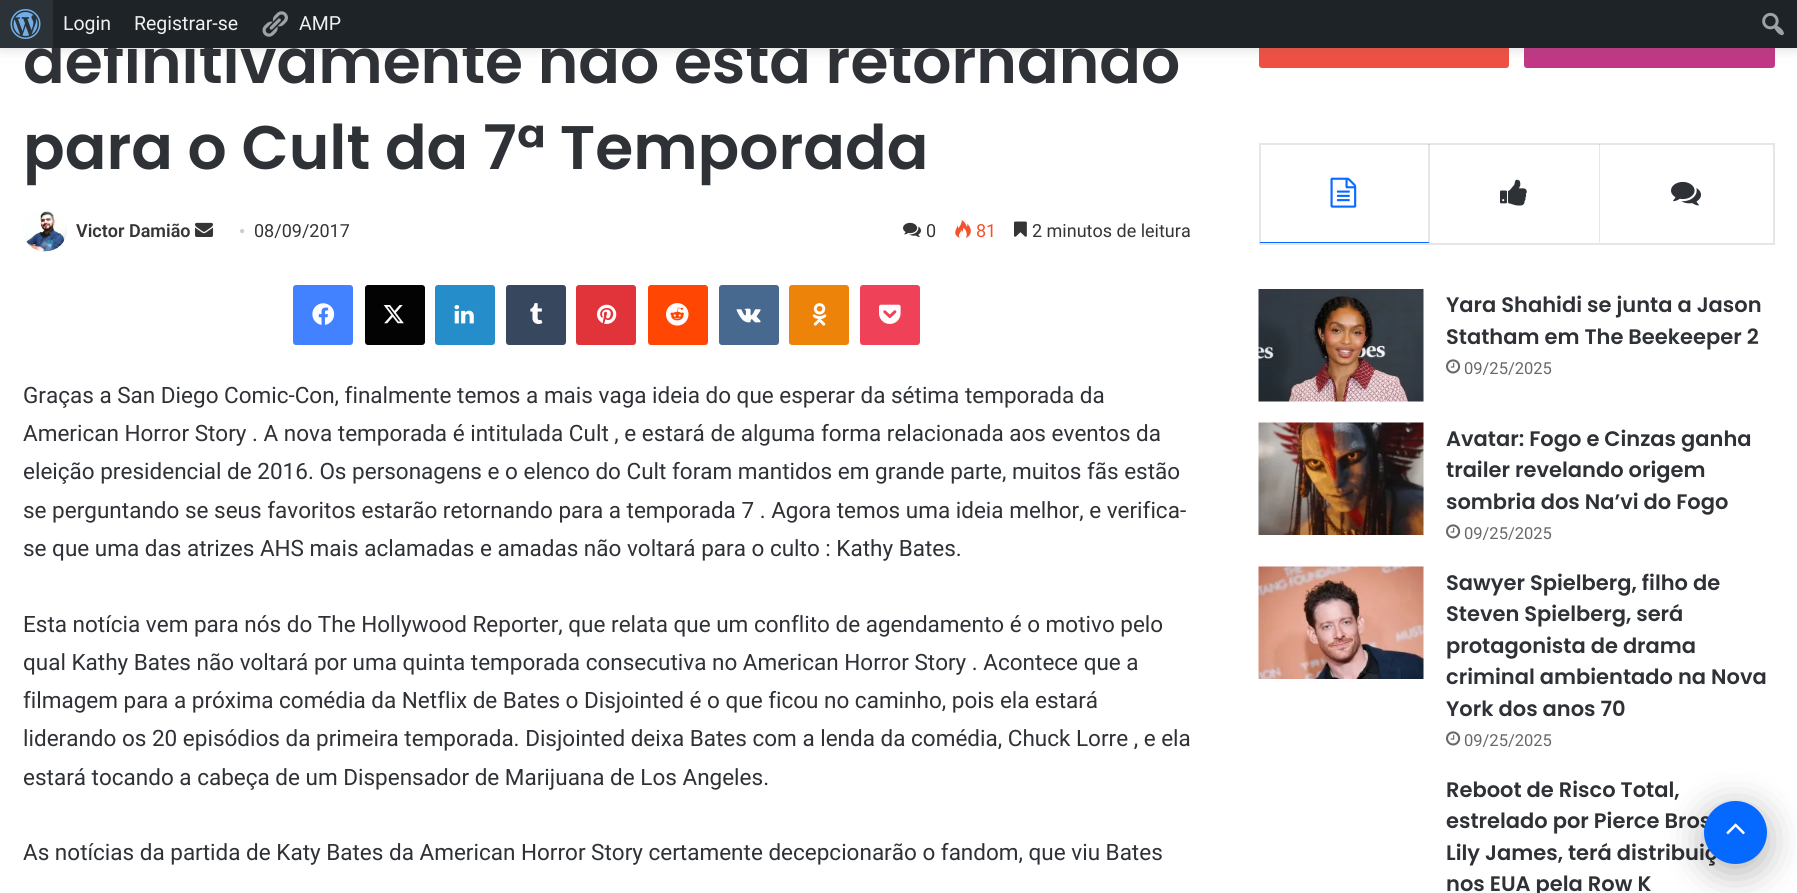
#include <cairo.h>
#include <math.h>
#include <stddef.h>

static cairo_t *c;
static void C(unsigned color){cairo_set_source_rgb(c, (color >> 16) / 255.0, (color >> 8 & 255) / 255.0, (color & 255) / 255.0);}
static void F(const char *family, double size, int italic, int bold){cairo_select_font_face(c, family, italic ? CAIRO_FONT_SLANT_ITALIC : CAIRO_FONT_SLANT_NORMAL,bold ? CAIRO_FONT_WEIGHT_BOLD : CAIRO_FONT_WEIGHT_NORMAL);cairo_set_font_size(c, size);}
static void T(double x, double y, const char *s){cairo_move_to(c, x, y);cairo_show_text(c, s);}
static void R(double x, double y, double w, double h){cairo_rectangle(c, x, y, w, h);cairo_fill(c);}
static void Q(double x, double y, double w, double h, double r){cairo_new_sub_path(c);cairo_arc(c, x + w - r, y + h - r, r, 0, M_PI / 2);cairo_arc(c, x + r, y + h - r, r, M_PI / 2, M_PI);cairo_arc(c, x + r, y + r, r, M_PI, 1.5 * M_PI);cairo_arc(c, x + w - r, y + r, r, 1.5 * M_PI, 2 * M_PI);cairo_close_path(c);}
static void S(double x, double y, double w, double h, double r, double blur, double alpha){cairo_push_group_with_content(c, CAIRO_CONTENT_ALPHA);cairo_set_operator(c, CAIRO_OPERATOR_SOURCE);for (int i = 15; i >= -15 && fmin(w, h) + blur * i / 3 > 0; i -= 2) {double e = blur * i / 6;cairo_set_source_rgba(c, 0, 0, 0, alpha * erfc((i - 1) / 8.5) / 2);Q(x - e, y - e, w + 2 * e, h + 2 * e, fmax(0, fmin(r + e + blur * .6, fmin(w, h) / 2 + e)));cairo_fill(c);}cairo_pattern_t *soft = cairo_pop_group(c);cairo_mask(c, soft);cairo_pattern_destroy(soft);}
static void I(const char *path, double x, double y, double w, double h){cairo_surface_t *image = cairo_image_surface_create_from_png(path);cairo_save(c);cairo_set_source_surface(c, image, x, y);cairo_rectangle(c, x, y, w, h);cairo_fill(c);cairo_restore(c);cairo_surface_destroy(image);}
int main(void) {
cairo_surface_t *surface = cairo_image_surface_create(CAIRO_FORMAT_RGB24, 1797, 893);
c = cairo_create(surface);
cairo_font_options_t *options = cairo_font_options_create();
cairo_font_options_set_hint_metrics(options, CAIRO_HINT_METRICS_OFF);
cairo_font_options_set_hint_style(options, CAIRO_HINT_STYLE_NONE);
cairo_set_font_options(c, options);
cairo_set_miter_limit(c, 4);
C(0xffffff);
cairo_paint(c);
C(0xef5043);
Q(1259,-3,250,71,3);
cairo_fill(c);
C(0xc23785);
Q(1524,-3,251,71,3);
cairo_fill(c);
C(0x636363);
S(0,-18,1797,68,0,6,.2);
F("Poppins SemiBold",61.5,0,0);
C(0x2e3136);
T(23,83,"definitivamente não está retornando");
C(0x1d2327);
R(53,0,1744,48);
C(0x2c3338);
R(0,0,53,48);
I("1.png",10,9,31,30);
F("Roboto",19.5,0,0);
C(0xf0f0f1);
T(63,30,"Login");
T(134,30,"Registrar-se");
I("2.png",262,11,26,26);
T(299,30,"AMP");
I("3.png",1762,12,22,24);
F("Poppins SemiBold",61.5,0,0);
C(0x2e3136);
T(23,169,"para o Cult da 7ª Temporada");
I("4.png",23,211,44,41);
F("Roboto SemiBold",18,0,0);
C(0x353535);
T(76,237,"Victor Damião");
I("5.png",195,222,18,15);
F("Liberation Serif",18,0,0);
C(0xcdcdcd);
T(239,237,"•");
F("Roboto",18,0,0);
C(0x353535);
T(254,237,"08/09/2017");
I("6.png",903,222,18,15);
T(926,237,"0");
I("7.png",955,220,16,18);
C(0xf3522c);
T(976,237,"81");
I("8.png",1014,221,13,16);
C(0x353535);
T(1032,237,"2 minutos de leitura");
C(0x4281ff);
Q(293,285,60,60,3);
cairo_fill(c);
I("9.png",312,303,23,22);
C(0x030303);
Q(365,285,60,60,3);
cairo_fill(c);
I("10.png",383,305,21,19);
C(0x258dc9);
Q(435,285,60,60,3);
cairo_fill(c);
I("11.png",454,305,20,19);
C(0x37485e);
Q(506,285,60,60,3);
cairo_fill(c);
I("12.png",530,303,13,21);
C(0xe1333a);
Q(576,285,60,60,3);
cairo_fill(c);
I("13.png",597,304,20,20);
C(0xff4703);
Q(648,285,60,60,3);
cairo_fill(c);
I("14.png",666,303,23,23);
C(0x47688f);
Q(719,285,60,60,3);
cairo_fill(c);
I("15.png",736,308,25,15);
C(0xee830a);
Q(789,285,60,60,3);
cairo_fill(c);
I("16.png",812,303,15,23);
C(0xef4258);
Q(860,285,60,60,3);
cairo_fill(c);
I("17.png",879,304,22,20);
F("Roboto",22.5,0,0);
C(0x2e3136);
T(23,403,"Graças a San Diego Comic-Con, finalmente temos a mais vaga ideia do que esperar da sétima temporada da");
T(23,441,"American Horror Story . A nova temporada é intitulada Cult , e estará de alguma forma relacionada aos eventos da");
T(23,479,"eleição presidencial de 2016. Os personagens e o elenco do Cult foram mantidos em grande parte, muitos fãs estão");
T(23,518,"se perguntando se seus favoritos estarão retornando para a temporada 7 . Agora temos uma ideia melhor, e verifica-");
T(23,556,"se que uma das atrizes AHS mais aclamadas e amadas não voltará para o culto : Kathy Bates.");
T(23,632,"Esta notícia vem para nós do The Hollywood Reporter, que relata que um conflito de agendamento é o motivo pelo");
T(23,670,"qual Kathy Bates não voltará por uma quinta temporada consecutiva no American Horror Story . Acontece que a");
T(23,708,"filmagem para a próxima comédia da Netflix de Bates o Disjointed é o que ficou no caminho, pois ela estará");
T(23,746,"liderando os 20 episódios da primeira temporada. Disjointed deixa Bates com a lenda da comédia, Chuck Lorre , e ela");
T(23,785,"estará tocando a cabeça de um Dispensador de Marijuana de Los Angeles.");
T(23,860,"As notícias da partida de Katy Bates da American Horror Story certamente decepcionarão o fandom, que viu Bates");
cairo_rectangle(c,1260,144,514,100);
C(0xe6e6e6);
cairo_stroke(c);
cairo_set_source_rgba(c,0.012,0.012,0.012,0.1);
cairo_new_path(c);
cairo_move_to(c,1430,144);
cairo_line_to(c,1430,243);
cairo_line_to(c,1428,242);
cairo_line_to(c,1428,144);
cairo_close_path(c);
cairo_fill(c);
C(0x086bff);
cairo_new_path(c);
cairo_move_to(c,1430,243);
cairo_line_to(c,1260,243);
cairo_line_to(c,1260,242);
cairo_line_to(c,1428,242);
cairo_close_path(c);
cairo_fill(c);
I("18.png",1330,177,27,31);
cairo_set_source_rgba(c,0.012,0.012,0.012,0.1);
cairo_new_path(c);
cairo_move_to(c,1600,144);
cairo_line_to(c,1600,243);
cairo_line_to(c,1599,242);
cairo_line_to(c,1599,144);
cairo_close_path(c);
cairo_fill(c);
I("19.png",1500,179,27,27);
I("20.png",1671,181,30,25);
I("21.png",1258,289,166,113);
F("Poppins SemiBold",21,0,0);
C(0x2e3136);
T(1446,312,"Yara Shahidi se junta a Jason");
T(1446,344,"Statham em The Beekeeper 2");
I("22.png",1446,359,15,15);
F("Roboto",16.5,0,0);
C(0x686868);
T(1464,374,"09/25/2025");
I("23.png",1258,422,166,113);
F("Poppins SemiBold",21,0,0);
C(0x2e3136);
T(1446,446,"Avatar: Fogo e Cinzas ganha");
T(1446,477,"trailer revelando origem");
T(1446,509,"sombria dos Na’vi do Fogo");
I("22.png",1446,524,15,15);
F("Roboto",16.5,0,0);
C(0x686868);
T(1464,539,"09/25/2025");
I("24.png",1258,566,166,113);
F("Poppins SemiBold",21,0,0);
C(0x2e3136);
T(1446,590,"Sawyer Spielberg, filho de");
T(1446,621,"Steven Spielberg, será");
T(1446,653,"protagonista de drama");
T(1446,684,"criminal ambientado na Nova");
T(1446,716,"York dos anos 70");
I("22.png",1446,731,15,15);
F("Roboto",16.5,0,0);
C(0x686868);
T(1464,746,"09/25/2025");
F("Poppins SemiBold",21,0,0);
C(0x2e3136);
T(1446,797,"Reboot de Risco Total,");
T(1446,828,"estrelado por Pierce Bros");
T(1446,860,"Lily James, terá distribuiç");
T(1446,891,"nos EUA pela Row K");
C(0x000000);
S(1704,809,63,63,31.5,19,.3);
C(0x0669ff);
cairo_arc(c,1735.5,832.5,31.5,0,2 * M_PI);
cairo_fill(c);
I("25.png",1726,823,19,12);
cairo_surface_write_to_png(surface, "o.png");
cairo_font_options_destroy(options);
cairo_destroy(c);
cairo_surface_destroy(surface);
return 0;
}
